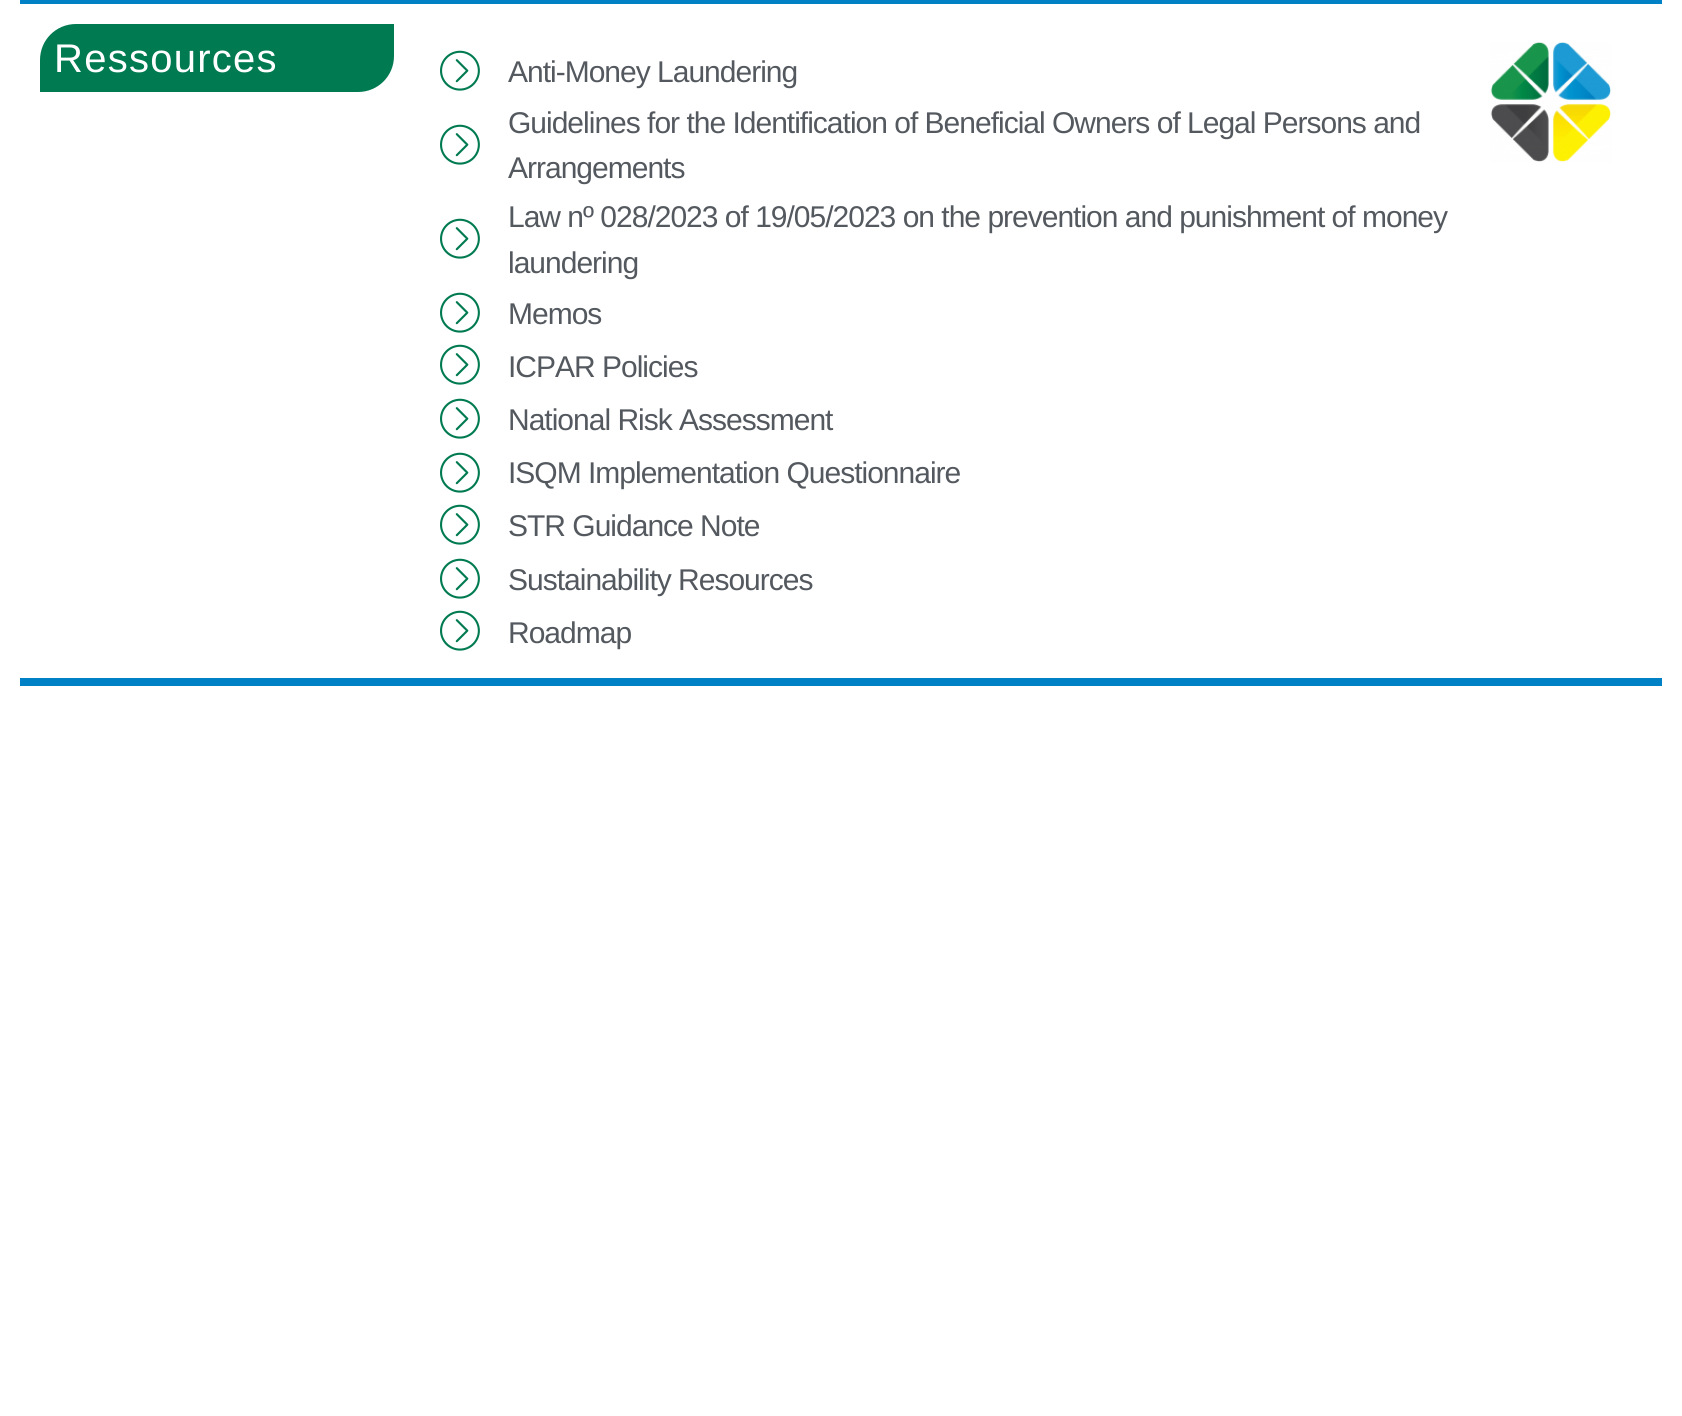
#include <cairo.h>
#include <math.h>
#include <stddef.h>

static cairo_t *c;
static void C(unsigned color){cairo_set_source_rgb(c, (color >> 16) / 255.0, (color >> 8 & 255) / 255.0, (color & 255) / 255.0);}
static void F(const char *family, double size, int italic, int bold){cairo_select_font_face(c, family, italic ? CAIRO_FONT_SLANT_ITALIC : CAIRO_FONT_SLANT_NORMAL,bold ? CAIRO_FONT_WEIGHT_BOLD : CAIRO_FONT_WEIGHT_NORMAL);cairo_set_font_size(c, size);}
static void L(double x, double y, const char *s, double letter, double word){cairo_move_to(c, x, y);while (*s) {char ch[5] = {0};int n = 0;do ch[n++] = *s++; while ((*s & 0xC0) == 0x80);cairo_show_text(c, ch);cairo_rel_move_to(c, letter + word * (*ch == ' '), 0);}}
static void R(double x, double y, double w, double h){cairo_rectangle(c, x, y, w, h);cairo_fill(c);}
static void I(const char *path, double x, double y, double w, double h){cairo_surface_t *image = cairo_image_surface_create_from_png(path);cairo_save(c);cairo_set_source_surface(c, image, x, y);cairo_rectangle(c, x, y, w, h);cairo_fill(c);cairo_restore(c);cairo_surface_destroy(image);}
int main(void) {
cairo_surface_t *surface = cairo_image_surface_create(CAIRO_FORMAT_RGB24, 1682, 1416);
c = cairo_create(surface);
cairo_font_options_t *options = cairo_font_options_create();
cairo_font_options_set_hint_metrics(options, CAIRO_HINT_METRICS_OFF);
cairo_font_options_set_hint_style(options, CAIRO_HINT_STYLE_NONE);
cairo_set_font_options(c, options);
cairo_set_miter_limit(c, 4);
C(0xffffff);
cairo_paint(c);
C(0x0081c6);
R(20,0,1642,4);
R(20,678,1642,8);
C(0x007a50);
cairo_new_path(c);
cairo_move_to(c,76,24);
cairo_line_to(c,394,24);
cairo_line_to(c,394,56);
cairo_curve_to(c,394,76,378,92,358,92);
cairo_line_to(c,40,92);
cairo_line_to(c,40,60);
cairo_curve_to(c,40,40,56,24,76,24);
cairo_close_path(c);
cairo_fill(c);
F("Liberation Sans",40,0,0);
C(0xffffff);
L(54,72,"Ressources",1.25,0);
I("1.png",440,50,40,41);
F("Liberation Sans",30,0,0);
C(0x54595f);
L(508,82,"Anti-Money Laundering",-1,0);
I("1.png",440,124,40,41);
L(508,133,"Guidelines for the Identification of Beneficial Owners of Legal Persons and",-1,0);
L(508,178,"Arrangements",-1,0);
I("1.png",440,218,40,41);
L(508,227,"Law nº 028/2023 of 19/05/2023 on the prevention and punishment of money",-1,0);
L(508,273,"laundering",-1,0);
I("1.png",440,292,40,41);
L(508,324,"Memos",-1,0);
I("1.png",440,344,40,41);
L(508,377,"ICPAR Policies",-1,0);
I("1.png",440,398,40,41);
L(508,430,"National Risk Assessment",-1,0);
I("1.png",440,452,40,41);
L(508,483,"ISQM Implementation Questionnaire",-1,0);
I("1.png",440,504,40,41);
L(508,536,"STR Guidance Note",-1,0);
I("1.png",440,558,40,41);
L(508,590,"Sustainability Resources",-1,0);
I("1.png",440,610,40,41);
L(508,643,"Roadmap",-1,0);
I("2.png",1490,42,122,121);
cairo_surface_write_to_png(surface, "o.png");
cairo_font_options_destroy(options);
cairo_destroy(c);
cairo_surface_destroy(surface);
return 0;
}
